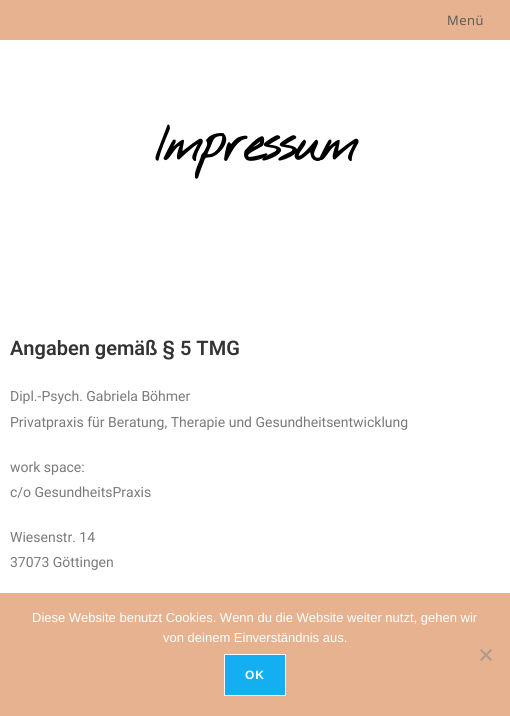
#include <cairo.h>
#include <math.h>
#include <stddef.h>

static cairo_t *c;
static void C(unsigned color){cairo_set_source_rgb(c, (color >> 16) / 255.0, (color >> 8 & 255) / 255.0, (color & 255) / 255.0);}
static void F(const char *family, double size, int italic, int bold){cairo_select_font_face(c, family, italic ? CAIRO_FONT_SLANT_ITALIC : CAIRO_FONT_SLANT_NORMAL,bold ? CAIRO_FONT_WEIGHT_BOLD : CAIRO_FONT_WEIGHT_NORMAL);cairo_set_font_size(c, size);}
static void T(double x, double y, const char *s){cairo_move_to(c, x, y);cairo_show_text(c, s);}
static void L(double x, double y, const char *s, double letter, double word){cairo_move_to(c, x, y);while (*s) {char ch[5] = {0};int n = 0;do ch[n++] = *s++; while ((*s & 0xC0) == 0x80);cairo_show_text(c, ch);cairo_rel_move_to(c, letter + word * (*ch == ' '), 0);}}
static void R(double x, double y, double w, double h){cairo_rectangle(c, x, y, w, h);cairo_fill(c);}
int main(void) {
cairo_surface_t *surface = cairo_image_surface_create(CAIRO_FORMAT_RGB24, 510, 716);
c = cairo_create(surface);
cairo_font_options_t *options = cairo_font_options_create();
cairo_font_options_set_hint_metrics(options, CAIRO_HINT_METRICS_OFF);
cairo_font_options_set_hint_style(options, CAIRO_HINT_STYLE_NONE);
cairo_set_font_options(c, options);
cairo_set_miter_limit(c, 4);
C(0xffffff);
cairo_paint(c);
C(0xe6b28f);
R(0,0,510,40);
F("Open Sans",13,0,0);
C(0x555555);
L(447,25,"Menü",.5,0);
F("Nothing You Could Do",50,0,1);
C(0x000000);
L(155,161,"Impressum",-3.25,0);
F("Roboto SemiBold",20,0,0);
C(0x333333);
T(10,355,"Angaben gemäß § 5 TMG");
F("Roboto",14,0,0);
C(0x7a7a7a);
T(10,401,"Dipl.-Psych. Gabriela Böhmer");
T(10,427,"Privatpraxis für Beratung, Therapie und Gesundheitsentwicklung");
T(10,472,"work space:");
T(10,497,"c/o GesundheitsPraxis");
T(10,542,"Wiesenstr. 14");
T(10,567,"37073 Göttingen");
C(0xe6b28f);
R(0,593,510,123);
F("Liberation Sans",13,0,0);
C(0xffffff);
T(32,622,"Diese Website benutzt Cookies. Wenn du die Website weiter nutzt, gehen wir");
T(163,642,"von deinem Einverständnis aus.");
C(0xb39988);
cairo_new_path(c);
cairo_move_to(c,490.5,649);
cairo_line_to(c,492,650.5);
cairo_line_to(c,481.5,661);
cairo_line_to(c,480,659.5);
cairo_close_path(c);
cairo_fill(c);
cairo_new_path(c);
cairo_move_to(c,480,650.5);
cairo_line_to(c,481.5,649);
cairo_line_to(c,492,659.5);
cairo_line_to(c,490.5,661);
cairo_close_path(c);
cairo_fill(c);
C(0x13aff0);
cairo_rectangle(c,224.5,654.5,61,41);
cairo_fill_preserve(c);
C(0xffffff);
cairo_set_line_width(c,1);
cairo_stroke(c);
F("Liberation Sans",12,0,1);
L(245,679,"OK",1,0);
cairo_surface_write_to_png(surface, "o.png");
cairo_font_options_destroy(options);
cairo_destroy(c);
cairo_surface_destroy(surface);
return 0;
}
